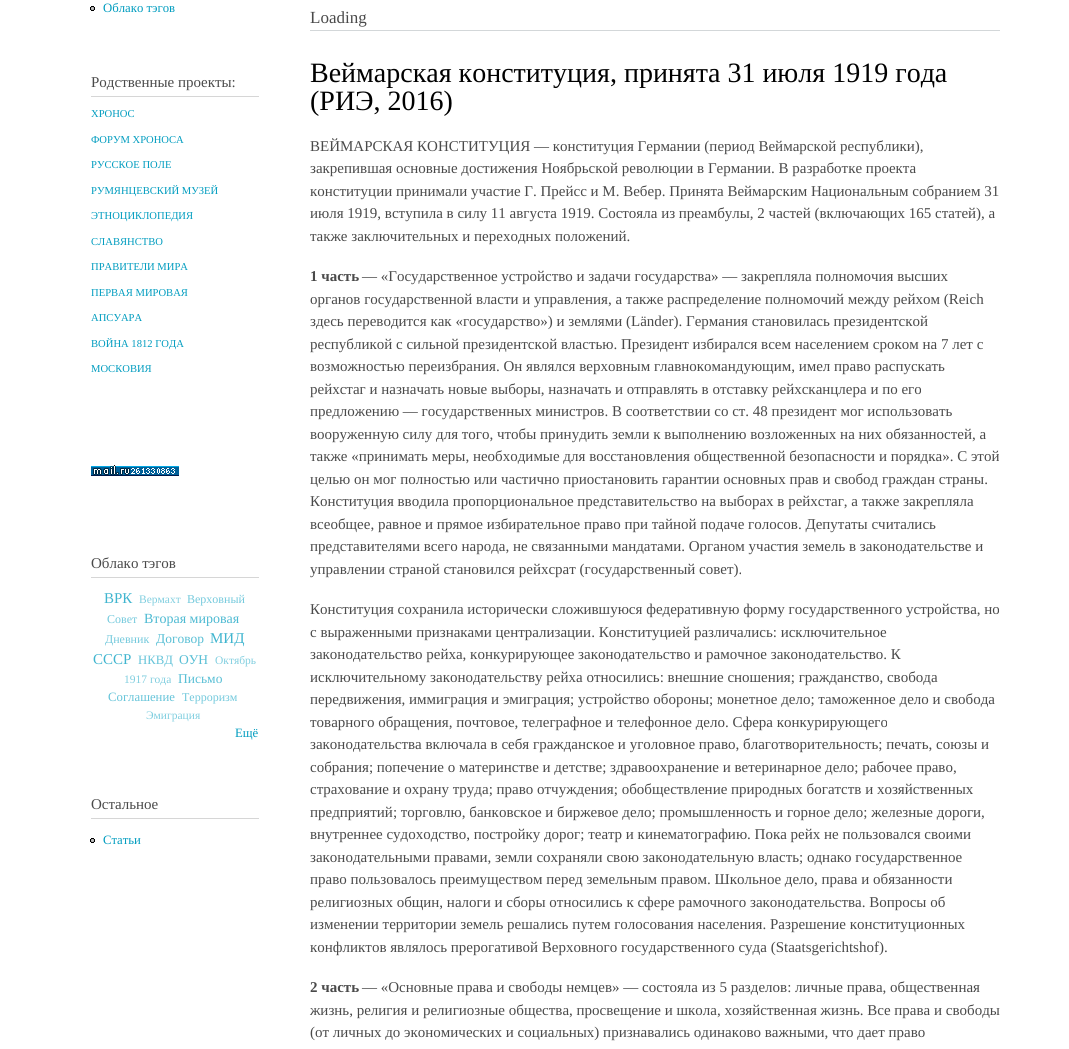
#include <cairo.h>
#include <math.h>
#include <stddef.h>

static cairo_t *c;
static void C(unsigned color){cairo_set_source_rgb(c, (color >> 16) / 255.0, (color >> 8 & 255) / 255.0, (color & 255) / 255.0);}
static void F(const char *family, double size, int italic, int bold){cairo_select_font_face(c, family, italic ? CAIRO_FONT_SLANT_ITALIC : CAIRO_FONT_SLANT_NORMAL,bold ? CAIRO_FONT_WEIGHT_BOLD : CAIRO_FONT_WEIGHT_NORMAL);cairo_set_font_size(c, size);}
static void T(double x, double y, const char *s){cairo_move_to(c, x, y);cairo_show_text(c, s);}
static void R(double x, double y, double w, double h){cairo_rectangle(c, x, y, w, h);cairo_fill(c);}
static void I(const char *path, double x, double y, double w, double h){cairo_surface_t *image = cairo_image_surface_create_from_png(path);cairo_save(c);cairo_set_source_surface(c, image, x, y);cairo_rectangle(c, x, y, w, h);cairo_fill(c);cairo_restore(c);cairo_surface_destroy(image);}
int main(void) {
cairo_surface_t *surface = cairo_image_surface_create(CAIRO_FORMAT_RGB24, 1069, 1049);
c = cairo_create(surface);
cairo_font_options_t *options = cairo_font_options_create();
cairo_font_options_set_hint_metrics(options, CAIRO_HINT_METRICS_OFF);
cairo_font_options_set_hint_style(options, CAIRO_HINT_STYLE_NONE);
cairo_set_font_options(c, options);
cairo_set_miter_limit(c, 4);
C(0xffffff);
cairo_paint(c);
I("1.png",90,6,5,5);
F("Liberation Serif",12.75,0,0);
C(0x009cbf);
T(103,12,"Облако тэгов");
C(0xd6d6d6);
R(91,96,168,1);
F("Liberation Serif",15,0,0);
C(0x4a4a4a);
T(91,87,"Родственные проекты:");
F("Liberation Serif",10.6,0,0);
C(0x009cbf);
T(91,117,"ХРОНОС");
T(91,143,"ФОРУМ ХРОНОСА");
T(91,168,"РУССКОЕ ПОЛЕ");
T(91,194,"РУМЯНЦЕВСКИЙ МУЗЕЙ");
T(91,219,"ЭТНОЦИКЛОПЕДИЯ");
T(91,245,"СЛАВЯНСТВО");
T(91,270,"ПРАВИТЕЛИ МИРА");
T(91,296,"ПЕРВАЯ МИРОВАЯ");
T(91,321,"АПСУАРА");
T(91,347,"ВОЙНА 1812 ГОДА");
T(91,372,"МОСКОВИЯ");
I("2.png",91,465,88,11);
C(0xd6d6d6);
R(91,577,168,1);
F("Liberation Serif",15,0,0);
C(0x4a4a4a);
T(91,568,"Облако тэгов");
C(0x40b5cf);
T(104,603,"ВРК");
F("Liberation Serif",11.5,0,0);
C(0x80cedf);
T(139,603,"Вермахт");
F("Liberation Serif",12,0,0);
C(0x73c9dc);
T(187,603,"Верховный");
T(107,623,"Совет");
F("Liberation Serif",14,0,0);
C(0x4dbad2);
T(144,623,"Вторая мировая");
F("Liberation Serif",12,0,0);
C(0x73c9dc);
T(105,643,"Дневник");
F("Liberation Serif",13.5,0,0);
C(0x59bfd5);
T(156,643,"Договор");
F("Liberation Serif",15,0,0);
C(0x40b5cf);
T(210,643,"МИД");
T(93,664,"СССР");
F("Liberation Serif",12.75,0,0);
C(0x66c4d9);
T(138,664,"НКВД");
F("Liberation Serif",13.5,0,0);
C(0x59bfd5);
T(179,664,"ОУН");
F("Liberation Serif",11.5,0,0);
C(0x80cedf);
T(215,664,"Октябрь");
T(124,683,"1917 года");
F("Liberation Serif",13.5,0,0);
C(0x59bfd5);
T(178,683,"Письмо");
F("Liberation Serif",12.75,0,0);
C(0x66c4d9);
T(108,701,"Соглашение");
F("Liberation Serif",12,0,0);
C(0x73c9dc);
T(182,701,"Терроризм");
F("Liberation Serif",11.5,0,0);
C(0x80cedf);
T(146,719,"Эмиграция");
F("Liberation Serif",12.75,0,0);
C(0x009cbf);
T(235,737,"Ещё");
C(0xd6d6d6);
R(91,818,168,1);
F("Liberation Serif",15,0,0);
C(0x4a4a4a);
T(91,809,"Остальное");
I("1.png",90,838,5,5);
F("Liberation Serif",12.75,0,0);
C(0x009cbf);
T(103,844,"Статьи");
C(0xd3d7d9);
R(310,30,690,1);
F("Liberation Serif",17,0,0);
C(0x4a4a4a);
T(310,23,"Loading");
F("Liberation Serif",28,0,0);
C(0x000000);
T(310,82,"Веймарская конституция, принята 31 июля 1919 года");
T(310,110,"(РИЭ, 2016)");
F("Liberation Serif",15,0,0);
C(0x4a4a4a);
T(310,151,"ВЕЙМАРСКАЯ КОНСТИТУЦИЯ — конституция Германии (период Веймарской республики),");
T(310,173,"закрепившая основные достижения Ноябрьской революции в Германии. В разработке проекта");
T(310,196,"конституции принимали участие Г. Прейсс и М. Вебер. Принята Веймарским Национальным собранием 31");
T(310,218,"июля 1919, вступила в силу 11 августа 1919. Состояла из преамбулы, 2 частей (включающих 165 статей), а");
T(310,241,"также заключительных и переходных положений.");
F("Liberation Serif",15,0,1);
T(310,281,"1 часть");
F("Liberation Serif",15,0,0);
T(362,281,"— «Государственное устройство и задачи государства» — закрепляла полномочия высших");
T(310,304,"органов государственной власти и управления, а также распределение полномочий между рейхом (Reich");
T(310,326,"здесь переводится как «государство») и землями (Länder). Германия становилась президентской");
T(310,349,"республикой с сильной президентской властью. Президент избирался всем населением сроком на 7 лет с");
T(310,371,"возможностью переизбрания. Он являлся верховным главнокомандующим, имел право распускать");
T(310,394,"рейхстаг и назначать новые выборы, назначать и отправлять в отставку рейхсканцлера и по его");
T(310,416,"предложению — государственных министров. В соответствии со ст. 48 президент мог использовать");
T(310,439,"вооруженную силу для того, чтобы принудить земли к выполнению возложенных на них обязанностей, а");
T(310,461,"также «принимать меры, необходимые для восстановления общественной безопасности и порядка». С этой");
T(310,484,"целью он мог полностью или частично приостановить гарантии основных прав и свобод граждан страны.");
T(310,506,"Конституция вводила пропорциональное представительство на выборах в рейхстаг, а также закрепляла");
T(310,529,"всеобщее, равное и прямое избирательное право при тайной подаче голосов. Депутаты считались");
T(310,551,"представителями всего народа, не связанными мандатами. Органом участия земель в законодательстве и");
T(310,574,"управлении страной становился рейхсрат (государственный совет).");
T(310,614,"Конституция сохранила исторически сложившуюся федеративную форму государственного устройства, но");
T(310,637,"с выраженными признаками централизации. Конституцией различались: исключительное");
T(310,659,"законодательство рейха, конкурирующее законодательство и рамочное законодательство. К");
T(310,682,"исключительному законодательству рейха относились: внешние сношения; гражданство, свобода");
T(310,704,"передвижения, иммиграция и эмиграция; устройство обороны; монетное дело; таможенное дело и свобода");
T(310,727,"товарного обращения, почтовое, телеграфное и телефонное дело. Сфера конкурирующего");
T(310,749,"законодательства включала в себя гражданское и уголовное право, благотворительность; печать, союзы и");
T(310,772,"собрания; попечение о материнстве и детстве; здравоохранение и ветеринарное дело; рабочее право,");
T(310,794,"страхование и охрану труда; право отчуждения; обобществление природных богатств и хозяйственных");
T(310,817,"предприятий; торговлю, банковское и биржевое дело; промышленность и горное дело; железные дороги,");
T(310,839,"внутреннее судоходство, постройку дорог; театр и кинематографию. Пока рейх не пользовался своими");
T(310,862,"законодательными правами, земли сохраняли свою законодательную власть; однако государственное");
T(310,884,"право пользовалось преимуществом перед земельным правом. Школьное дело, права и обязанности");
T(310,907,"религиозных общин, налоги и сборы относились к сфере рамочного законодательства. Вопросы об");
T(310,929,"изменении территории земель решались путем голосования населения. Разрешение конституционных");
T(310,952,"конфликтов являлось прерогативой Верховного государственного суда (Staatsgerichtshof).");
F("Liberation Serif",15,0,1);
T(310,992,"2 часть");
F("Liberation Serif",15,0,0);
T(362,992,"— «Основные права и свободы немцев» — состояла из 5 разделов: личные права, общественная");
T(310,1015,"жизнь, религия и религиозные общества, просвещение и школа, хозяйственная жизнь. Все права и свободы");
T(310,1037,"(от личных до экономических и социальных) признавались одинаково важными, что дает право");
cairo_surface_write_to_png(surface, "o.png");
cairo_font_options_destroy(options);
cairo_destroy(c);
cairo_surface_destroy(surface);
return 0;
}
